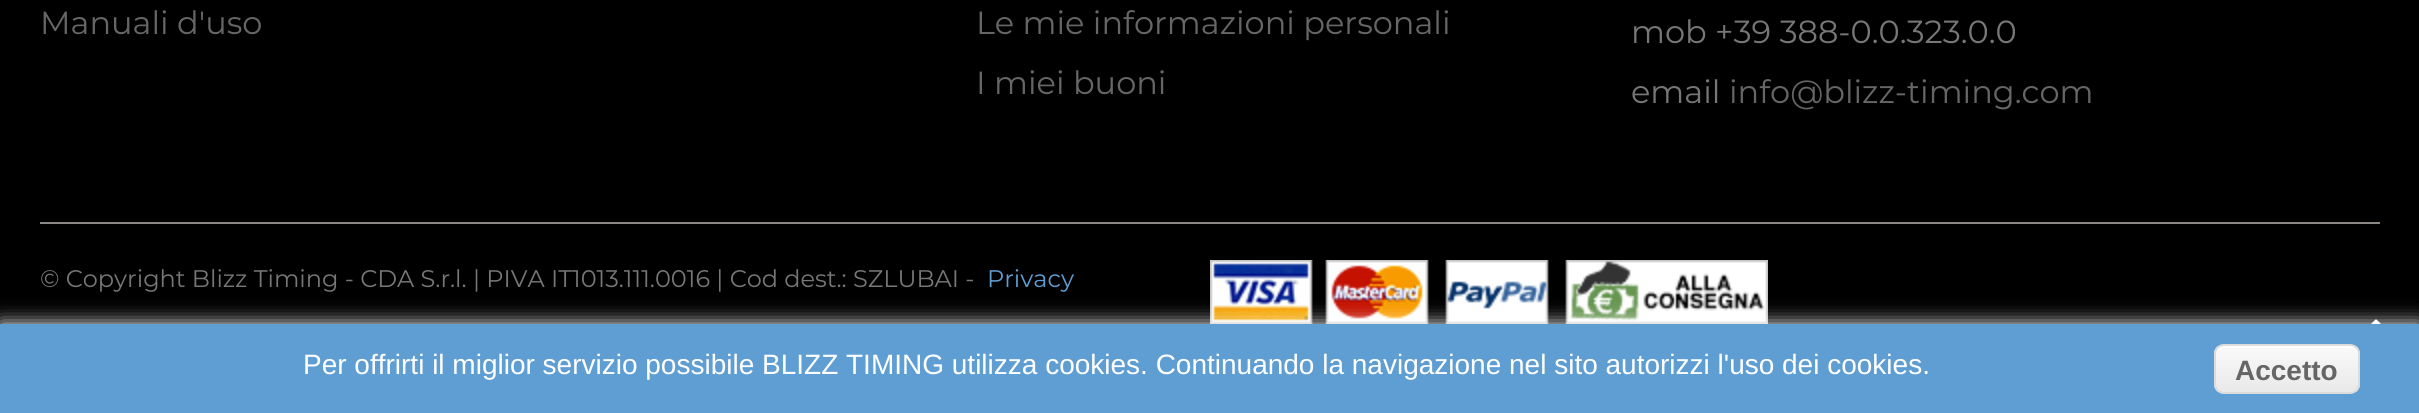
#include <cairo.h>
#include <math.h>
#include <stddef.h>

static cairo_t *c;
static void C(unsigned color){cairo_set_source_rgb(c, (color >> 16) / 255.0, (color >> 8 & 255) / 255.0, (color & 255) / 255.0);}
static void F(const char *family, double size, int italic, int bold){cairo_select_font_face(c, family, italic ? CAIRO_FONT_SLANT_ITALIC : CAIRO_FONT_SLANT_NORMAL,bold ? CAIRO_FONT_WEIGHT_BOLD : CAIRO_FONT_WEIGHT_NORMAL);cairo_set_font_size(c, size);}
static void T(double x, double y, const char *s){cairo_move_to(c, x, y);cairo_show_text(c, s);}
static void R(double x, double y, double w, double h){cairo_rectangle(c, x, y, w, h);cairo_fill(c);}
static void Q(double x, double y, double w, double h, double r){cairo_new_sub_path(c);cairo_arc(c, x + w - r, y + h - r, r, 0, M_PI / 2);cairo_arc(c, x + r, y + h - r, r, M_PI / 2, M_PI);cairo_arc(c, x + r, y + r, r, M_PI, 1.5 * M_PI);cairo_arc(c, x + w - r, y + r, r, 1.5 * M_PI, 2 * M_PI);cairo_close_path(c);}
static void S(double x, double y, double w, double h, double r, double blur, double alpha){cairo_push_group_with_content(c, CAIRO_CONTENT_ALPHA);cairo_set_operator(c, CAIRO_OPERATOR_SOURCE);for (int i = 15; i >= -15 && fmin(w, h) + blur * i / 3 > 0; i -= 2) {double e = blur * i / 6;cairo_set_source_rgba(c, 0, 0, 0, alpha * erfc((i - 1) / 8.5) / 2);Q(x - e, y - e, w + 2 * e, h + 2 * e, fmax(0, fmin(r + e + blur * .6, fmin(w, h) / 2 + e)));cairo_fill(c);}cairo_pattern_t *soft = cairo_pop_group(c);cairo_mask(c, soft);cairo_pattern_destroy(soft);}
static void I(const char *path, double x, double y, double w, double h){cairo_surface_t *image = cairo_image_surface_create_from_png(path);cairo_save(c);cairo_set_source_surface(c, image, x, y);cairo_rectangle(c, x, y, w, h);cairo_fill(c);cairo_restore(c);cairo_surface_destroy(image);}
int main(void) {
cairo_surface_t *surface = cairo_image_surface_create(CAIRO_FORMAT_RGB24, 2419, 413);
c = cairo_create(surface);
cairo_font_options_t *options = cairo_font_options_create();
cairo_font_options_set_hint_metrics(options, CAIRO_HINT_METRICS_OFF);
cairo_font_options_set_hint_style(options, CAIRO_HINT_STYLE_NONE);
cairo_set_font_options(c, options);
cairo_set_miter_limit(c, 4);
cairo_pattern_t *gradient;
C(0x000000);
cairo_paint(c);
C(0x8b8886);
R(40,222,2340,2);
F("Montserrat",32,0,0);
C(0x676666);
T(40,34,"Manuali d'uso");
T(976,34,"Le mie informazioni personali");
T(976,94,"I miei buoni");
C(0x777777);
T(1631,43,"mob +39 388-0.0.323.0.0");
T(1631,103,"email");
C(0x676666);
T(1729,103,"info@blizz-timing.com");
F("Montserrat",24,0,0);
C(0x777777);
T(40,287,"© Copyright Blizz Timing - CDA S.r.l. | PIVA IT1013.111.0016 | Cod dest.: SZLUBAI -");
C(0x5f9ed3);
T(987,287,"Privacy");
I("1.png",1210,260,558,64);
I("2.png",2371,319,10,5);
C(0xffffff);
S(0,324,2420,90,0,10,1);
C(0x5f9ed3);
R(0,324,2419,89);
F("Liberation Sans",28,0,0);
C(0xffffff);
T(303,374,"Per offrirti il miglior servizio possibile BLIZZ TIMING utilizza cookies. Continuando la navigazione nel sito autorizzi l'uso dei cookies.");
cairo_save(c);
Q(2214,344,146,50,10);
cairo_clip(c);
gradient = cairo_pattern_create_linear(2216,346,2216,392);
cairo_pattern_add_color_stop_rgba(gradient,.05,0.976,0.976,0.976,1);
cairo_pattern_add_color_stop_rgba(gradient,1,0.914,0.914,0.914,1);
cairo_set_source(c,gradient);
cairo_pattern_destroy(gradient);
R(2214,346,146,46);
cairo_restore(c);
cairo_new_path(c);
cairo_move_to(c,2224,348);
cairo_line_to(c,2350,348);
cairo_curve_to(c,2354,348,2358,352,2358,356);
cairo_line_to(c,2358,354);
cairo_curve_to(c,2358,350,2354,346,2350,346);
cairo_line_to(c,2224,346);
cairo_curve_to(c,2220,346,2216,350,2216,354);
cairo_line_to(c,2216,356);
cairo_curve_to(c,2216,352,2220,348,2224,348);
cairo_close_path(c);
cairo_fill(c);
Q(2215,345,144,48,9);
C(0xdcdcdc);
cairo_stroke(c);
F("Liberation Sans",28,0,1);
C(0x676666);
T(2235,380,"Accetto");
cairo_surface_write_to_png(surface, "o.png");
cairo_font_options_destroy(options);
cairo_destroy(c);
cairo_surface_destroy(surface);
return 0;
}
